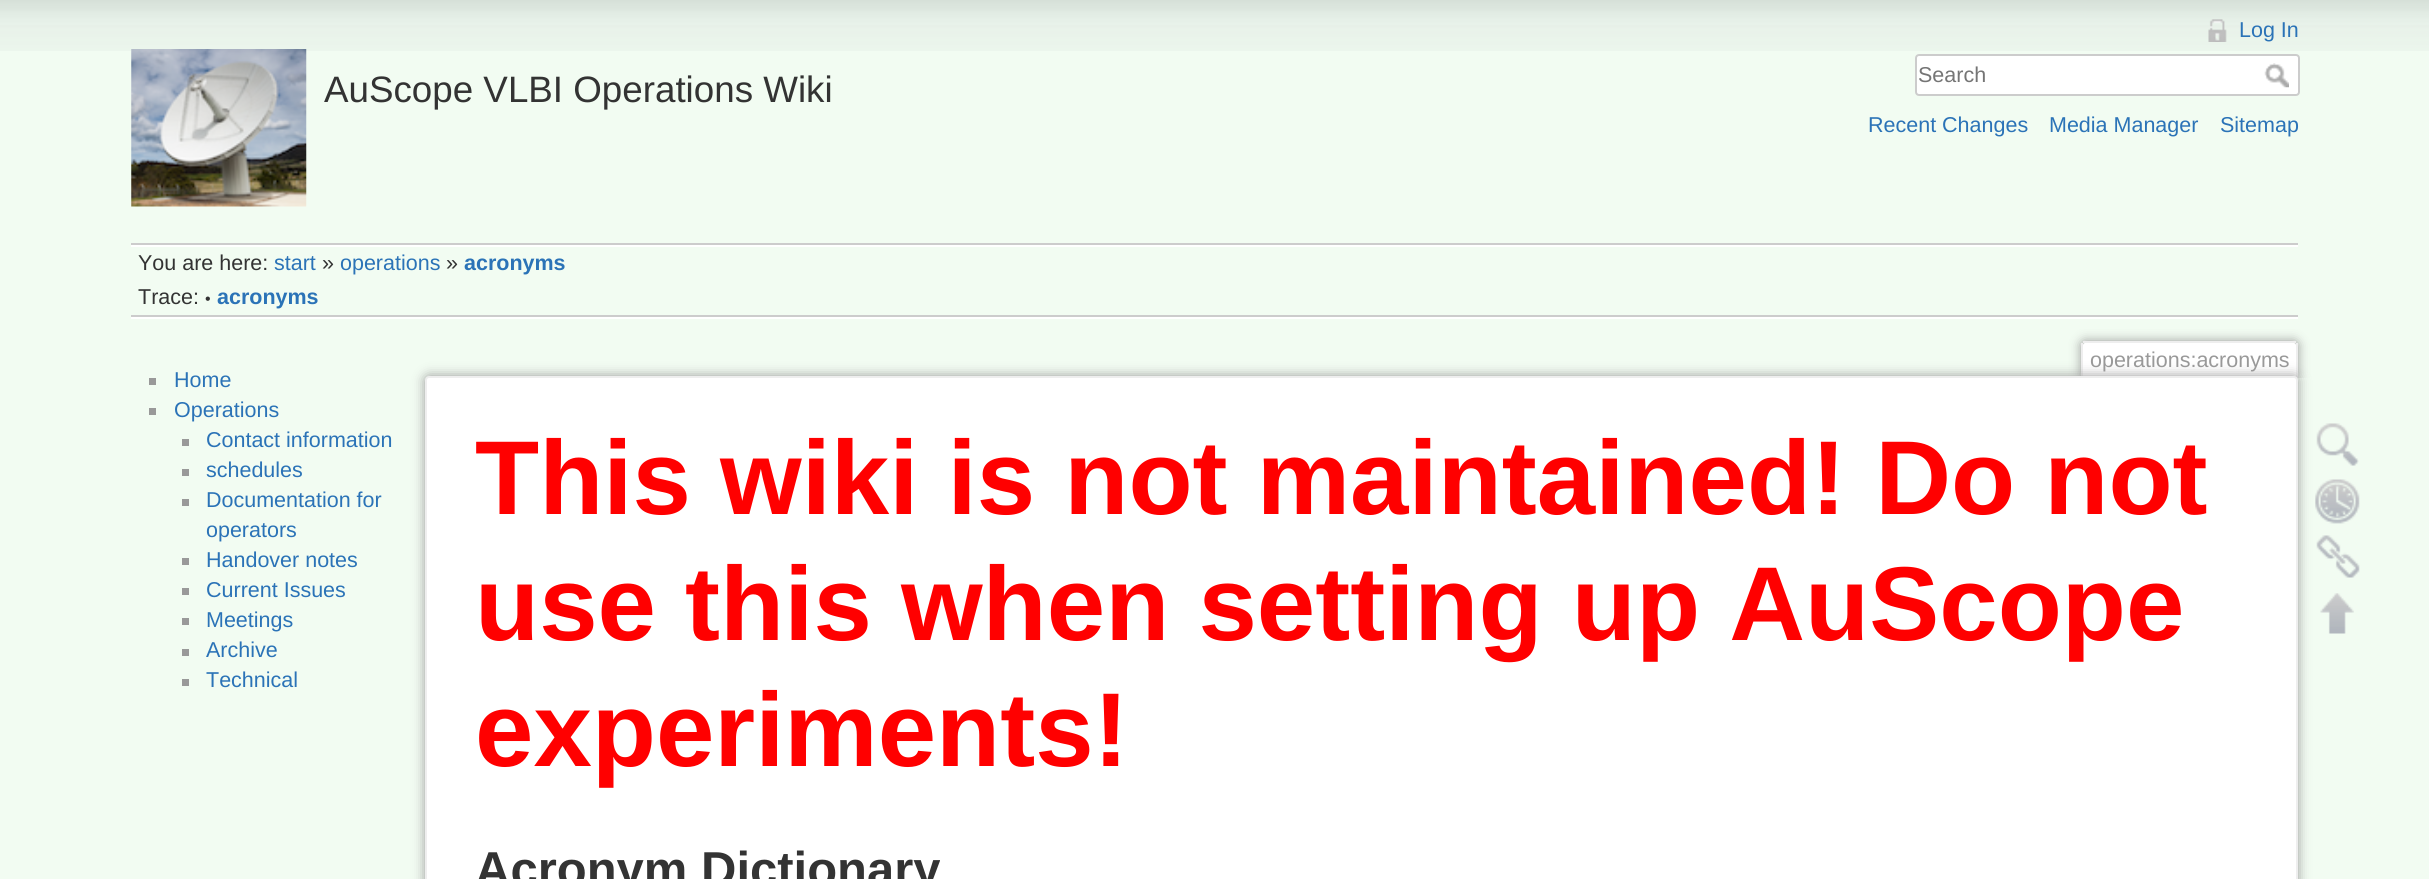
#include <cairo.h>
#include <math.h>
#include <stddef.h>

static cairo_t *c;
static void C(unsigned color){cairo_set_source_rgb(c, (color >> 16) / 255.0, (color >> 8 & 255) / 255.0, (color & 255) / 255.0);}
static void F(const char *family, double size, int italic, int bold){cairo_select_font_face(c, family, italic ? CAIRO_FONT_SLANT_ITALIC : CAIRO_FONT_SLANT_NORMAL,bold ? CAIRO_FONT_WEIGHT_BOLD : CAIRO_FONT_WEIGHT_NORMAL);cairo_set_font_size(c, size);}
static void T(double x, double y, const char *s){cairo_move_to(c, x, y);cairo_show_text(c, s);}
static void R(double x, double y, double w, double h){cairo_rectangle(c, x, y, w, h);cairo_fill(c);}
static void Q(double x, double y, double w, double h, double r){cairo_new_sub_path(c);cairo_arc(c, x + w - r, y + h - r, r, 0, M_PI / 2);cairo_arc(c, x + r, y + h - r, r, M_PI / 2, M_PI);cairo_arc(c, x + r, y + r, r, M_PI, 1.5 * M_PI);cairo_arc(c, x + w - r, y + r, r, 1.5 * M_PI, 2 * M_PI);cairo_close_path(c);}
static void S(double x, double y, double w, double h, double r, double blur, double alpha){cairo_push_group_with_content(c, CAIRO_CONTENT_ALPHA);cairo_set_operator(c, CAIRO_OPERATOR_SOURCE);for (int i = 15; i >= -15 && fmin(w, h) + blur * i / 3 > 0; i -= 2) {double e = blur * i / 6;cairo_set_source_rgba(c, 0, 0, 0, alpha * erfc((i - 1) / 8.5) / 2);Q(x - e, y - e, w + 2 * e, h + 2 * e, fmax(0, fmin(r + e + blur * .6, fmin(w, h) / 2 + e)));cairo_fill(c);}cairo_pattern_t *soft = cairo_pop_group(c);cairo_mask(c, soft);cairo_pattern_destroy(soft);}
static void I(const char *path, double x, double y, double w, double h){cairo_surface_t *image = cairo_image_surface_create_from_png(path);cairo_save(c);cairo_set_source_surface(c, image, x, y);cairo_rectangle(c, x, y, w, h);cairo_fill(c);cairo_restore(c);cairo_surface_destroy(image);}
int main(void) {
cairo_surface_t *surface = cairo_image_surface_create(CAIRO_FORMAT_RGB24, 2429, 879);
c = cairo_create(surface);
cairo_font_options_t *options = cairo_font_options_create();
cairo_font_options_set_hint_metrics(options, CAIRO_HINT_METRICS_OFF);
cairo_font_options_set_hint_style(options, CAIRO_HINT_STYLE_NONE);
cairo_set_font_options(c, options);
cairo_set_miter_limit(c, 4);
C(0xf2fcf2);
cairo_paint(c);
I("1.png",0,0,2429,51);
I("2.png",131,49,176,158);
F("Liberation Sans",36.75,0,0);
C(0x333333);
T(324,102,"AuScope VLBI Operations Wiki");
I("3.png",2208,19,19,23);
F("Liberation Sans",21.5,0,0);
C(0x2b73b7);
T(2239,37,"Log In");
C(0xffffff);
Q(1916,55,383,40,3);
cairo_fill_preserve(c);
C(0xcccccc);
cairo_stroke(c);
C(0x757575);
T(1918,82,"Search");
I("4.png",2264,63,25,25);
C(0x2b73b7);
T(1868,132,"Recent Changes");
T(2049,132,"Media Manager");
T(2220,132,"Sitemap");
C(0xcccccc);
R(131,243,2167,2);
C(0xffffff);
R(131,317,2167,2);
R(131,245,2167,2);
C(0x333333);
T(138,270,"You are here:");
C(0x2b73b7);
T(274,270,"start");
C(0x333333);
T(322,270,"»");
C(0x2b73b7);
T(340,270,"operations");
C(0x333333);
T(446,270,"»");
F("Liberation Sans",21.5,0,1);
C(0x2b73b7);
T(464,270,"acronyms");
C(0xcccccc);
R(131,315,2167,2);
F("Liberation Sans",21.5,0,0);
C(0x333333);
T(138,304,"Trace:");
F("Liberation Sans",16,0,0);
T(205,304,"•");
F("Liberation Sans",21.5,0,1);
C(0x2b73b7);
T(217,304,"acronyms");
C(0x999999);
R(149,378,7,7);
F("Liberation Sans",21.5,0,0);
C(0x2b73b7);
T(174,387,"Home");
C(0x999999);
R(149,408,7,7);
C(0x2b73b7);
T(174,417,"Operations");
C(0x999999);
R(182,439,7,7);
C(0x2b73b7);
T(206,447,"Contact information");
C(0x999999);
R(182,469,7,7);
C(0x2b73b7);
T(206,477,"schedules");
C(0x999999);
R(182,499,7,7);
C(0x2b73b7);
T(206,507,"Documentation for");
T(206,537,"operators");
C(0x999999);
R(182,558,7,7);
C(0x2b73b7);
T(206,567,"Handover notes");
C(0x999999);
R(182,588,7,7);
C(0x2b73b7);
T(206,597,"Current Issues");
C(0x999999);
R(182,618,7,7);
C(0x2b73b7);
T(206,627,"Meetings");
C(0x999999);
R(182,649,7,7);
C(0x2b73b7);
T(206,657,"Archive");
C(0x999999);
R(182,679,7,7);
C(0x2b73b7);
T(206,687,"Technical");
cairo_save(c);
cairo_rectangle(c,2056,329,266,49);
cairo_clip(c);
C(0x999999);
S(2081,341,217,37,4,5.5,1);
cairo_restore(c);
C(0xffffff);
cairo_new_path(c);
cairo_move_to(c,2085,343);
cairo_line_to(c,2294,343);
cairo_curve_to(c,2295,343,2296,344,2296,345);
cairo_line_to(c,2296,378);
cairo_line_to(c,2083,378);
cairo_line_to(c,2083,345);
cairo_curve_to(c,2083,344,2084,343,2085,343);
cairo_close_path(c);
cairo_fill(c);
C(0xeeeeee);
R(2083,341,213,2);
R(2296,343,2,35);
R(2081,343,2,35);
C(0x999999);
T(2090,367,"operations:acronyms");
C(0x999999);
S(425,376,1873,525,4,6,1);
C(0xffffff);
Q(426,377,1871,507,3);
cairo_fill_preserve(c);
C(0xeeeeee);
cairo_stroke(c);
F("Liberation Sans",105,0,1);
C(0xff0000);
T(475,514,"This wiki is not maintained! Do not");
T(475,640,"use this when setting up AuScope");
T(475,766,"experiments!");
F("Liberation Sans",49,0,1);
C(0x333333);
T(475,886,"Acronym Dictionary");
I("5.png",2316,423,43,43);
I("6.png",2315,479,45,45);
I("7.png",2316,535,44,43);
I("8.png",2320,593,34,41);
cairo_surface_write_to_png(surface, "o.png");
cairo_font_options_destroy(options);
cairo_destroy(c);
cairo_surface_destroy(surface);
return 0;
}
